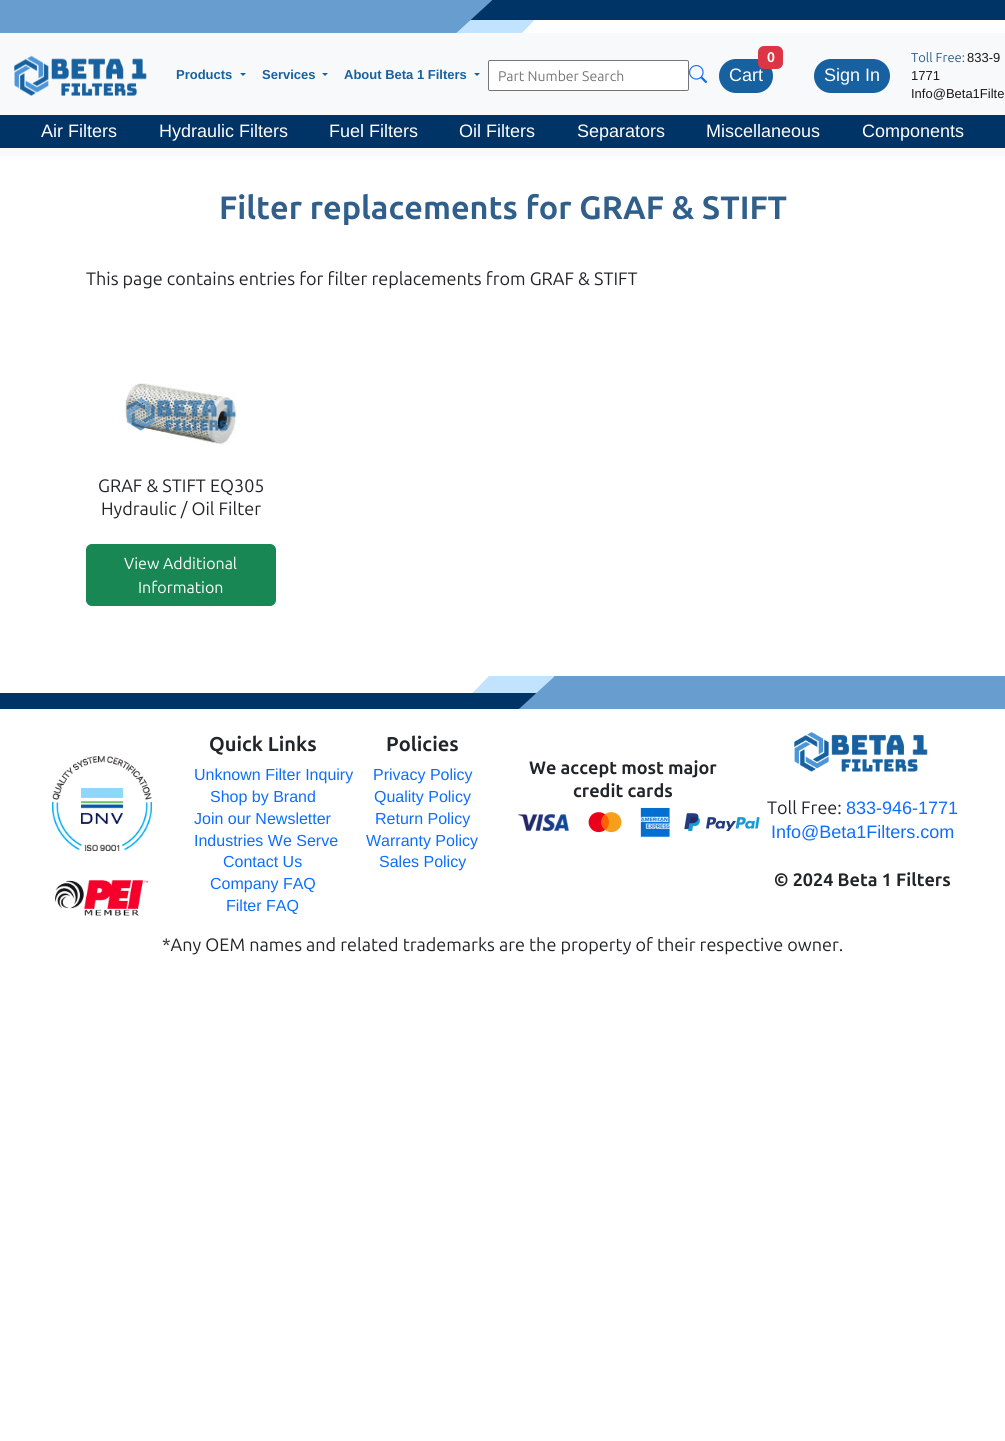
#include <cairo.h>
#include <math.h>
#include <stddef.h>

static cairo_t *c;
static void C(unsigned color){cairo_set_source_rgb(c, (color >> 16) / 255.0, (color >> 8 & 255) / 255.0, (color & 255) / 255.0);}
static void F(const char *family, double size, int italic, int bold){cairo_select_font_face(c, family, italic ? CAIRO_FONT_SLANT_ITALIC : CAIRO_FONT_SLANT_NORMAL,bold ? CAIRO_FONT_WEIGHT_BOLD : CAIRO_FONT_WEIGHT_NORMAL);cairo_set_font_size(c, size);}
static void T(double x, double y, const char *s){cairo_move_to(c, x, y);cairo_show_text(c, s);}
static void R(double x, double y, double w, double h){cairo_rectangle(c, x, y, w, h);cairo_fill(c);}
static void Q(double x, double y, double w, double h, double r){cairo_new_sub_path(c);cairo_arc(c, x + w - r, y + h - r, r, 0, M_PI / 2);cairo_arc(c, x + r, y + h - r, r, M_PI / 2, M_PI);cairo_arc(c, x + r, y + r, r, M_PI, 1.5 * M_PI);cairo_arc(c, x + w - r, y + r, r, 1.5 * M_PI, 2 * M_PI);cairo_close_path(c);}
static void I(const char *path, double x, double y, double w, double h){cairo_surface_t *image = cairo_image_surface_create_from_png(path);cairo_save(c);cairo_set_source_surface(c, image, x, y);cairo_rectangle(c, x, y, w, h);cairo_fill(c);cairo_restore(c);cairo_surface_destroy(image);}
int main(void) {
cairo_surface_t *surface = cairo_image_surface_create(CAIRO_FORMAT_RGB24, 1005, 1441);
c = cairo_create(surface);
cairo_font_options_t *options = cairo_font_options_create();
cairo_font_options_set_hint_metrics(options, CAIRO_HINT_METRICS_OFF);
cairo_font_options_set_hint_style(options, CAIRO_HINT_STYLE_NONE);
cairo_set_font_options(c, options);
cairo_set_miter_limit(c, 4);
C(0xffffff);
cairo_paint(c);
C(0x689dcf);
R(0,0,452,33);
I("1.png",452,0,102,33);
C(0x003366);
R(554,0,451,20);
C(0xf8f9fa);
R(0,33,1005,123);
I("2.png",14,55,133,41);
F("Liberation Sans",13,0,1);
C(0x1761a0);
T(176,79,"Products");
cairo_new_path(c);
cairo_move_to(c,240,73);
cairo_line_to(c,246,73);
cairo_line_to(c,243,76);
cairo_close_path(c);
cairo_fill(c);
T(262,79,"Services");
cairo_new_path(c);
cairo_move_to(c,322,73);
cairo_line_to(c,328,73);
cairo_line_to(c,325,76);
cairo_close_path(c);
cairo_fill(c);
T(344,79,"About Beta 1 Filters");
cairo_new_path(c);
cairo_move_to(c,474,73);
cairo_line_to(c,480,73);
cairo_line_to(c,477,76);
cairo_close_path(c);
cairo_fill(c);
C(0xffffff);
Q(488.5,60.5,200,30,1.5);
cairo_fill_preserve(c);
C(0x767676);
cairo_set_line_width(c,1);
cairo_stroke(c);
F("Ubuntu",14,0,0);
C(0x757575);
T(498,81,"Part Number Search");
I("3.png",689,65,18,18);
C(0x1761a0);
Q(719,59,54,34,17);
cairo_fill(c);
F("Liberation Sans",18,0,0);
C(0xffffff);
T(729,81,"Cart");
C(0xdc3545);
Q(758,46,25,23,6);
cairo_fill(c);
F("Ubuntu",14,0,1);
C(0xffffff);
T(767,62,"0");
C(0x1761a0);
Q(814,59,76,34,17);
cairo_fill(c);
F("Liberation Sans",18,0,0);
C(0xffffff);
T(824,81,"Sign In");
F("Ubuntu",13,0,0);
C(0x2f5f8a);
T(911,62,"Toll Free:");
F("Liberation Sans",13,0,0);
C(0x191919);
T(967,62,"833-9");
T(911,80,"1771");
T(911,98,"Info@Beta1Filte");
C(0x003366);
R(0,115,1005,33);
F("Liberation Sans",18,0,0);
C(0xffffff);
T(41,137,"Air Filters");
T(159,137,"Hydraulic Filters");
T(329,137,"Fuel Filters");
T(459,137,"Oil Filters");
T(577,137,"Separators");
T(706,137,"Miscellaneous");
T(862,137,"Components");
F("Ubuntu",32.4,0,1);
C(0x2f5f8a);
T(219,219,"Filter replacements for GRAF & STIFT");
F("Ubuntu",18,0,0);
C(0x212529);
T(86,285,"This page contains entries for filter replacements from GRAF & STIFT");
I("4.png",121,383,116,62);
T(98,492,"GRAF & STIFT EQ305");
T(101,515,"Hydraulic / Oil Filter");
C(0x198754);
Q(86.5,544.5,189,61,5.5);
cairo_fill_preserve(c);
cairo_stroke(c);
F("Ubuntu",16,0,0);
C(0xffffff);
T(124,569,"View Additional");
T(138,593,"Information");
C(0x003366);
R(0,693,452,16);
I("5.png",452,676,102,33);
C(0x689dcf);
R(554,676,451,33);
I("6.png",52,756,100,95);
I("7.png",55,880,94,36);
F("Ubuntu",20,0,1);
C(0x212529);
T(209,751,"Quick Links");
F("Liberation Sans",16,0,0);
C(0x0d6efd);
T(194,780,"Unknown Filter Inquiry");
T(210,802,"Shop by Brand");
T(194,824,"Join our Newsletter");
T(194,846,"Industries We Serve");
T(223,867,"Contact Us");
T(210,889,"Company FAQ");
T(226,911,"Filter FAQ");
F("Ubuntu",20,0,1);
C(0x212529);
T(386,751,"Policies");
F("Liberation Sans",16,0,0);
C(0x0d6efd);
T(373,780,"Privacy Policy");
T(374,802,"Quality Policy");
T(375,824,"Return Policy");
T(366,846,"Warranty Policy");
T(379,867,"Sales Policy");
F("Ubuntu",18,0,1);
C(0x212529);
T(529,774,"We accept most major");
T(573,797,"credit cards");
I("8.png",518,807,242,30);
I("9.png",794,732,134,40);
F("Ubuntu",18,0,0);
T(767,814,"Toll Free:");
F("Liberation Sans",18,0,0);
C(0x0d6efd);
T(846,814,"833-946-1771");
T(771,838,"Info@Beta1Filters.com");
F("Ubuntu",18,0,1);
C(0x212529);
T(774,886,"© 2024 Beta 1 Filters");
F("Ubuntu",18,0,0);
T(162,951,"*Any OEM names and related trademarks are the property of their respective owner.");
cairo_surface_write_to_png(surface, "o.png");
cairo_font_options_destroy(options);
cairo_destroy(c);
cairo_surface_destroy(surface);
return 0;
}
